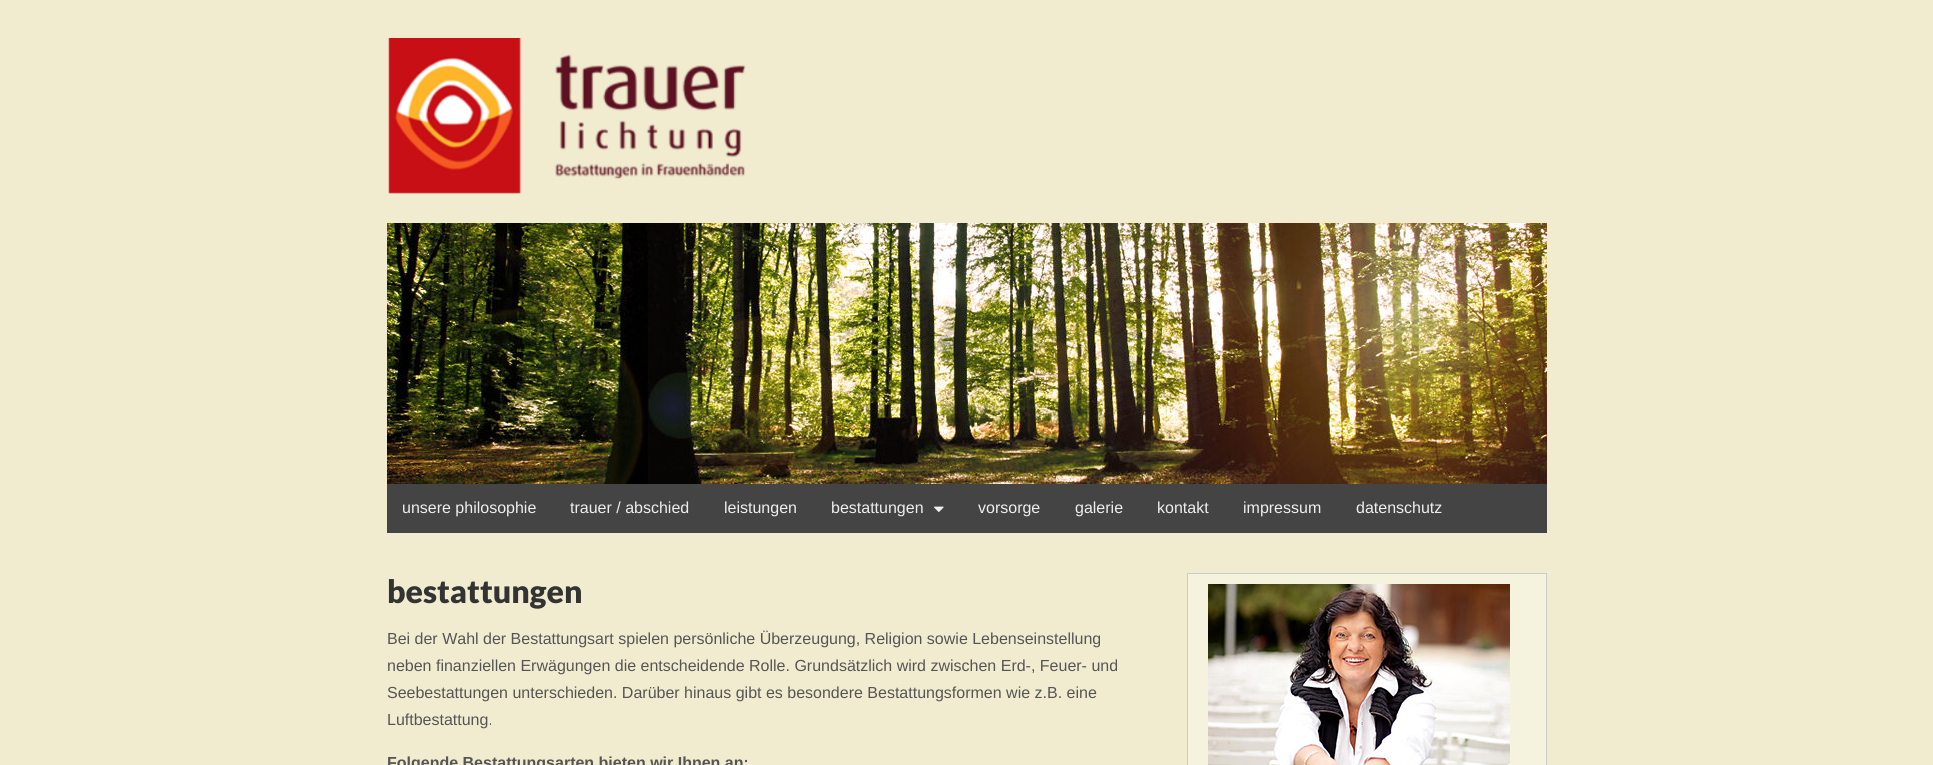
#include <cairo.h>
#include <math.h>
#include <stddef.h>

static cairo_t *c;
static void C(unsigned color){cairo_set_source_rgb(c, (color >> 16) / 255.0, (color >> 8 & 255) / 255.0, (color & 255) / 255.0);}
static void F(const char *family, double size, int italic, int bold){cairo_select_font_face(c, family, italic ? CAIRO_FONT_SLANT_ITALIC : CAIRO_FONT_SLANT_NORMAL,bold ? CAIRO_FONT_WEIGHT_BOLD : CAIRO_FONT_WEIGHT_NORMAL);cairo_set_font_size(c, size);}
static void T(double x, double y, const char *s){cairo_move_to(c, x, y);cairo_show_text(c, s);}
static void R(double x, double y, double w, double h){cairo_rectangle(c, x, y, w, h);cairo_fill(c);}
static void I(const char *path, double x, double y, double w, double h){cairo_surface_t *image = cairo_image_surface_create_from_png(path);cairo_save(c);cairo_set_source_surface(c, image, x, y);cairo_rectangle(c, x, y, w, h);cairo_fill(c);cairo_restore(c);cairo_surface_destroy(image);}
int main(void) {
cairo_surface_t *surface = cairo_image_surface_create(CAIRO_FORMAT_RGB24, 1933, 765);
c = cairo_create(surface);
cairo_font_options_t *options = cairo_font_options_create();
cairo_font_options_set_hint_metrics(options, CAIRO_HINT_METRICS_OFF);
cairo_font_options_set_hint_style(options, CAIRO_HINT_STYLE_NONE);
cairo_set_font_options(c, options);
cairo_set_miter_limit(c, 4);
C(0xf1eccf);
cairo_paint(c);
I("1.png",388,38,358,156);
I("2.png",387,223,1160,261);
C(0x444444);
R(387,484,1160,49);
F("Liberation Sans",16,0,0);
C(0xeeeeee);
T(402,513,"unsere philosophie");
T(570,513,"trauer / abschied");
T(724,513,"leistungen");
T(831,513,"bestattungen");
I("3.png",934,506,10,6);
T(978,513,"vorsorge");
T(1075,513,"galerie");
T(1157,513,"kontakt");
T(1243,513,"impressum");
T(1356,513,"datenschutz");
F("Lato Black",32,0,0);
C(0x333333);
T(387,603,"bestattungen");
F("Liberation Sans",16,0,0);
C(0x555555);
T(387,644,"Bei der Wahl der Bestattungsart spielen persönliche Überzeugung, Religion sowie Lebenseinstellung");
T(387,671,"neben finanziellen Erwägungen die entscheidende Rolle. Grundsätzlich wird zwischen Erd-, Feuer- und");
T(387,698,"Seebestattungen unterschieden. Darüber hinaus gibt es besondere Bestattungsformen wie z.B. eine");
T(387,725,"Luftbestattung.");
F("Liberation Sans",16,0,1);
T(387,768,"Folgende Bestattungsarten bieten wir Ihnen an:");
C(0xf5f2dd);
cairo_rectangle(c,1187.5,573.5,359,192);
cairo_fill_preserve(c);
C(0xcccccc);
cairo_set_line_width(c,1);
cairo_stroke(c);
I("4.png",1208,584,302,181);
cairo_surface_write_to_png(surface, "o.png");
cairo_font_options_destroy(options);
cairo_destroy(c);
cairo_surface_destroy(surface);
return 0;
}
